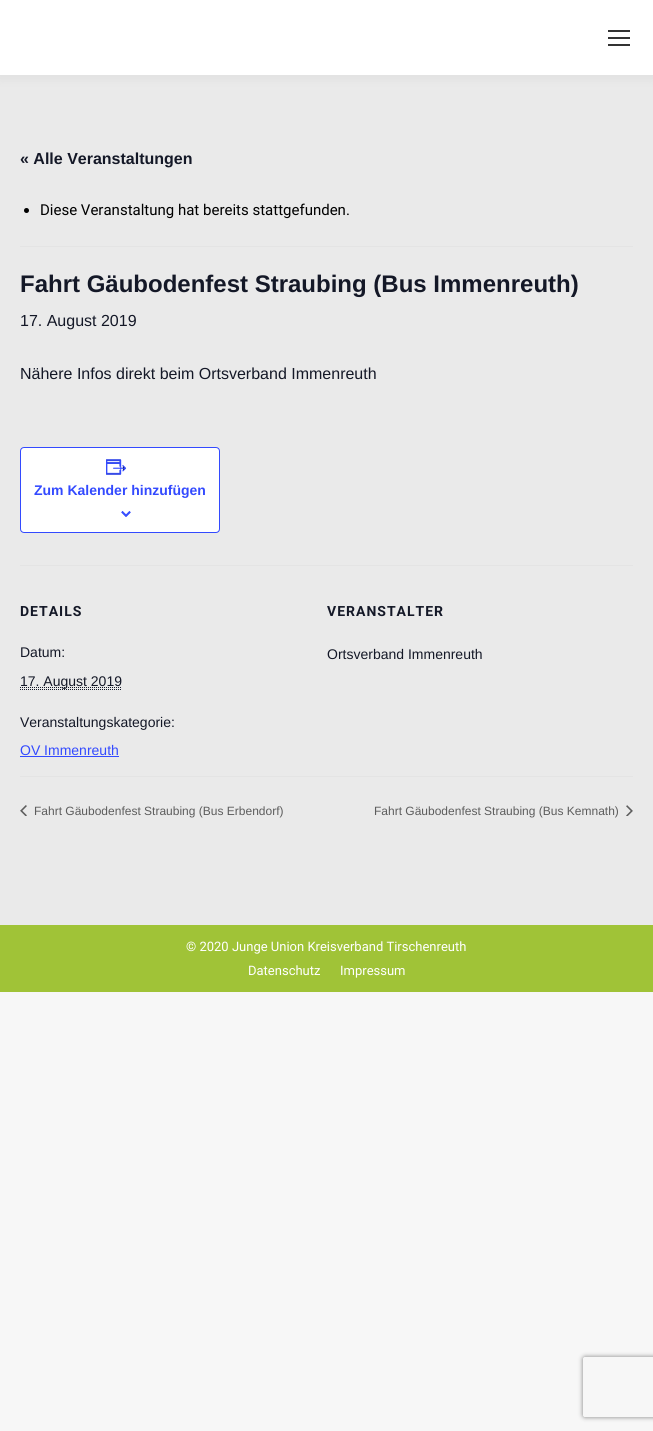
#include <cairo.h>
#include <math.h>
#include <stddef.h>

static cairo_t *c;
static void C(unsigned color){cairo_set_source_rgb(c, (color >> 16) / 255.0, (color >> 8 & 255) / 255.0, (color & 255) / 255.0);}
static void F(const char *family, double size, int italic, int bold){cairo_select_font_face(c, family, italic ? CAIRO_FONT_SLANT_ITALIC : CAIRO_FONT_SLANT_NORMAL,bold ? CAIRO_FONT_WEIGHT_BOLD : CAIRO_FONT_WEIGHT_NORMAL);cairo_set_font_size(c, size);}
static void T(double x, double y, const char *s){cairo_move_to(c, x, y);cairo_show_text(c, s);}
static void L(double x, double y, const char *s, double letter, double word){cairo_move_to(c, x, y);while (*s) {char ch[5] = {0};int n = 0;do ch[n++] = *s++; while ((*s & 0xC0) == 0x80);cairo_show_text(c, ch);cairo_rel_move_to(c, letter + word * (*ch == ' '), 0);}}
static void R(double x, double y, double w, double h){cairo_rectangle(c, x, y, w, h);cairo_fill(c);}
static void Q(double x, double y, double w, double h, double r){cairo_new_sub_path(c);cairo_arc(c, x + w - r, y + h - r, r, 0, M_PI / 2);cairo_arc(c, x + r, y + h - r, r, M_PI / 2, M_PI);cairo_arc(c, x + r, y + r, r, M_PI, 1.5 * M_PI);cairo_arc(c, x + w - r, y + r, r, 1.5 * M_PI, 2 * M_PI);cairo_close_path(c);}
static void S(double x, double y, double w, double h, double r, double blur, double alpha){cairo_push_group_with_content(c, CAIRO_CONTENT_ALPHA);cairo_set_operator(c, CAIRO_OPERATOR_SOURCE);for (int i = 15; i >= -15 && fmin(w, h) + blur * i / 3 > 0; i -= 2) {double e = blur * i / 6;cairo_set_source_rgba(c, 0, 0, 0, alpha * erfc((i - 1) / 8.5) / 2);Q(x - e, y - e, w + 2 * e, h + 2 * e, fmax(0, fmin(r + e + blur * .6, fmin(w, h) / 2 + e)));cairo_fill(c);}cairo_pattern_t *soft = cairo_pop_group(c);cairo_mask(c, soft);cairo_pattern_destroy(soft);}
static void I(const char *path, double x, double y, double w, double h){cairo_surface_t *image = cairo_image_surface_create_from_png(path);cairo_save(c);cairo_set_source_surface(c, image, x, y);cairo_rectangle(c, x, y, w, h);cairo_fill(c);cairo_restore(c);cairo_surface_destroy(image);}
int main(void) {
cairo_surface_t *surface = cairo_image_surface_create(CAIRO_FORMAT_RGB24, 653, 1431);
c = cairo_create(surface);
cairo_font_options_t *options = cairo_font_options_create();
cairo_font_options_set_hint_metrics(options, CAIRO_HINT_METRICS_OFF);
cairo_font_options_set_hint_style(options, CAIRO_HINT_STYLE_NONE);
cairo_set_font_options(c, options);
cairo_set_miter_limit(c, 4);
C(0xf7f7f7);
cairo_paint(c);
C(0xeaeaea);
R(0,75,653,850);
C(0x000000);
S(-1,-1,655,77,0,7.5,.07);
C(0xffffff);
R(0,0,653,75);
C(0x333333);
R(608,30,22,2);
R(608,37,22,2);
R(608,44,22,2);
F("Liberation Sans",16,0,1);
C(0x141827);
T(20,164,"« Alle Veranstaltungen");
C(0xe4e4e4);
R(20,246,613,1);
C(0x000000);
cairo_new_path(c);
cairo_arc(c,26.5,210.5,2.5,0,2 * M_PI);
cairo_fill(c);
F("Roboto",15,0,0);
T(40,215,"Diese Veranstaltung hat bereits stattgefunden.");
F("Liberation Sans",24,0,1);
C(0x141827);
T(20,292,"Fahrt Gäubodenfest Straubing (Bus Immenreuth)");
F("Liberation Sans",16,0,0);
T(20,326,"17. August 2019");
T(20,379,"Nähere Infos direkt beim Ortsverband Immenreuth");
C(0xffffff);
Q(20.5,447.5,199,85,3.5);
cairo_fill_preserve(c);
C(0x334aff);
cairo_set_line_width(c,1);
cairo_stroke(c);
I("1.png",106,459,21,16);
F("Liberation Sans",14,0,1);
T(34,495,"Zum Kalender hinzufügen");
I("2.png",121,511,10,6);
C(0xe4e4e4);
R(20,565,613,1);
F("Roboto",14,0,1);
C(0x141827);
L(20,616,"DETAILS",1,0);
F("Liberation Sans",14,0,0);
T(20,657,"Datum:");
cairo_new_path(c);
cairo_move_to(c,20,687.5);
cairo_line_to(c,122,687.5);
cairo_set_dash(c,(double[]){1,1},2,0);
cairo_stroke(c);
T(20,686,"17. August 2019");
cairo_new_path(c);
cairo_move_to(c,20,689.5);
cairo_line_to(c,122,689.5);
cairo_stroke(c);
T(20,727,"Veranstaltungskategorie:");
C(0x334aff);
T(20,755,"OV Immenreuth");
R(20,756,99,1);
F("Roboto",14,0,1);
C(0x141827);
L(327,616,"VERANSTALTER",1,0);
F("Liberation Sans",14,0,0);
T(327,659,"Ortsverband Immenreuth");
C(0xe4e4e4);
R(20,776,613,1);
I("3.png",20,805,7,11);
F("Liberation Sans",12,0,0);
C(0x5d5d5d);
T(34,815,"Fahrt Gäubodenfest Straubing (Bus Erbendorf)");
T(374,815,"Fahrt Gäubodenfest Straubing (Bus Kemnath)");
I("4.png",626,805,7,11);
C(0xa0c337);
R(0,925,653,67);
F("Roboto",13,0,0);
C(0xffffff);
T(186,951,"© 2020 Junge Union Kreisverband Tirschenreuth");
T(248,975,"Datenschutz");
T(340,975,"Impressum");
cairo_save(c);
cairo_set_fill_rule(c,CAIRO_FILL_RULE_EVEN_ODD);
cairo_new_path(c);
cairo_move_to(c,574,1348);
cairo_line_to(c,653,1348);
cairo_line_to(c,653,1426);
cairo_line_to(c,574,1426);
cairo_close_path(c);
cairo_move_to(c,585,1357);
cairo_line_to(c,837,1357);
cairo_curve_to(c,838,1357,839,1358,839,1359);
cairo_line_to(c,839,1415);
cairo_curve_to(c,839,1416,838,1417,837,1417);
cairo_line_to(c,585,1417);
cairo_curve_to(c,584,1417,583,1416,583,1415);
cairo_line_to(c,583,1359);
cairo_curve_to(c,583,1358,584,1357,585,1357);
cairo_close_path(c);
cairo_clip(c);
C(0x808080);
S(583,1357,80,60,2,2.5,1);
cairo_restore(c);
cairo_surface_write_to_png(surface, "o.png");
cairo_font_options_destroy(options);
cairo_destroy(c);
cairo_surface_destroy(surface);
return 0;
}
